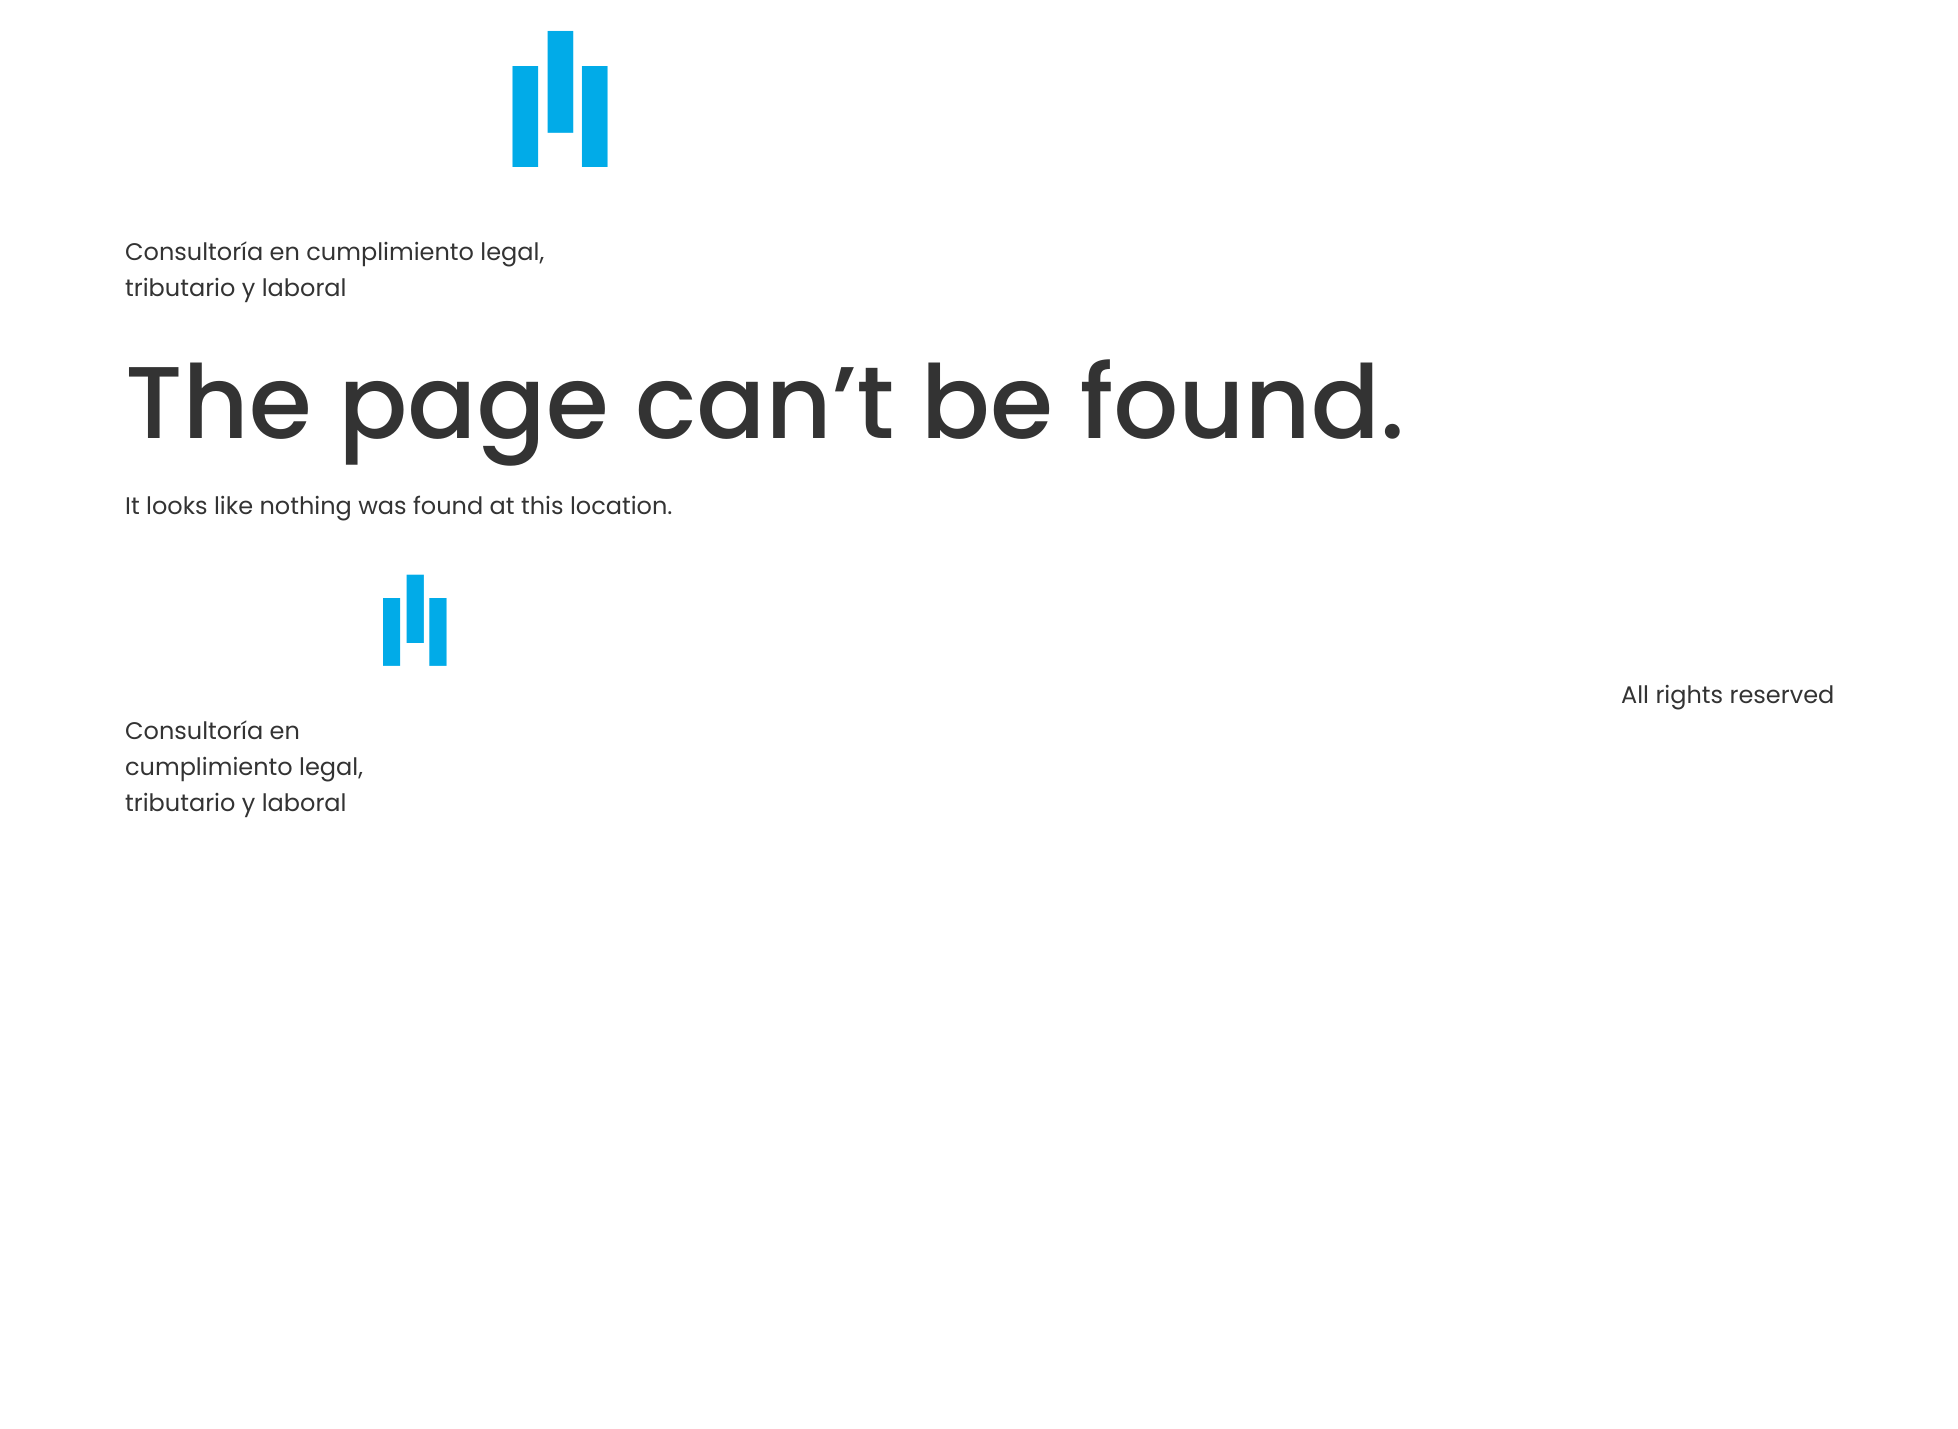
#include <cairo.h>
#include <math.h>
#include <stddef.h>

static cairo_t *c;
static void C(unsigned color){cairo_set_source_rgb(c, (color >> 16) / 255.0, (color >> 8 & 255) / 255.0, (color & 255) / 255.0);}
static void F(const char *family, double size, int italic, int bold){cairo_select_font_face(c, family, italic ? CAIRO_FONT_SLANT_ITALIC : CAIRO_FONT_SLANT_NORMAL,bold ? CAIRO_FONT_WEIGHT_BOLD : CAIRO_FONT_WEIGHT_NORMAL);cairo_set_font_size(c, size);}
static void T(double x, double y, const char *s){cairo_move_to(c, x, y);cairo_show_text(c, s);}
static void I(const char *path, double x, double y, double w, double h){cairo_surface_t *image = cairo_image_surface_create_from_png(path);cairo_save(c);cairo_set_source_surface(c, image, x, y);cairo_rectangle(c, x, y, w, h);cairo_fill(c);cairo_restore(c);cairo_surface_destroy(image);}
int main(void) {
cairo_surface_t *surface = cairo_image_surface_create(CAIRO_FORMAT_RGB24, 1958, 1429);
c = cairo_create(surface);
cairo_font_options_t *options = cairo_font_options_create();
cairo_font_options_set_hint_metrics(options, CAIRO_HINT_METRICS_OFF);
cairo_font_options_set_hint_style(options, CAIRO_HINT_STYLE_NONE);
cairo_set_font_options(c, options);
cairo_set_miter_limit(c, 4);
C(0xffffff);
cairo_paint(c);
I("1.png",512,30,96,137);
F("Poppins",24,0,0);
C(0x333333);
T(125,260,"Consultoría en cumplimiento legal,");
T(125,296,"tributario y laboral");
F("Poppins Medium",102,0,0);
T(125,438,"The page can’t be found.");
F("Poppins",24,0,0);
T(125,514,"It looks like nothing was found at this location.");
T(1621,703,"All rights reserved");
I("2.png",383,574,64,92);
T(125,739,"Consultoría en");
T(125,775,"cumplimiento legal,");
T(125,811,"tributario y laboral");
cairo_surface_write_to_png(surface, "o.png");
cairo_font_options_destroy(options);
cairo_destroy(c);
cairo_surface_destroy(surface);
return 0;
}
